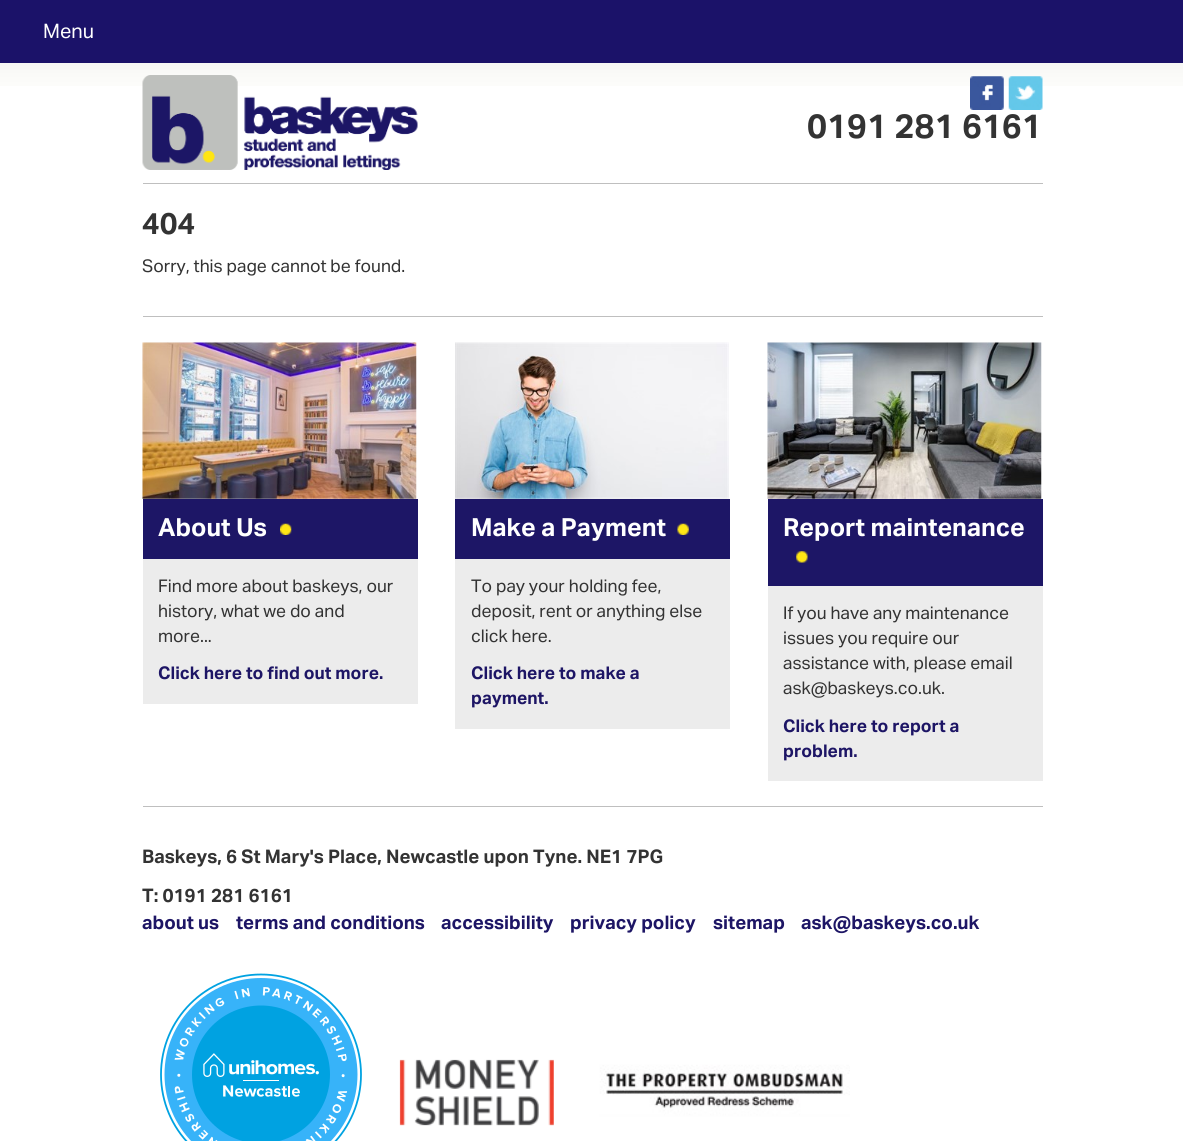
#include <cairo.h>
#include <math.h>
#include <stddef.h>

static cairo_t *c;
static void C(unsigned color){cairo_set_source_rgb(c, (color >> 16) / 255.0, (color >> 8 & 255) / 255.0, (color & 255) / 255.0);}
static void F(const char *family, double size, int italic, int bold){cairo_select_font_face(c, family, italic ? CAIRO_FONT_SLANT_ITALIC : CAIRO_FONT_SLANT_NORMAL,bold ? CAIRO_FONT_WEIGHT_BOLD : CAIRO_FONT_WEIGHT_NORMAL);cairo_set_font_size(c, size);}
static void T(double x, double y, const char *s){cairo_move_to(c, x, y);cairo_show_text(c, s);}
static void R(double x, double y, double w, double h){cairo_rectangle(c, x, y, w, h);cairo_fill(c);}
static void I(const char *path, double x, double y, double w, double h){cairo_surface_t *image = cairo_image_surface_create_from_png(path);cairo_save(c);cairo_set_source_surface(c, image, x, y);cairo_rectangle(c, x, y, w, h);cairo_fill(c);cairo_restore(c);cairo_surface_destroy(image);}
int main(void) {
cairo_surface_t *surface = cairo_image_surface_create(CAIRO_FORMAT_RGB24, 1183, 1141);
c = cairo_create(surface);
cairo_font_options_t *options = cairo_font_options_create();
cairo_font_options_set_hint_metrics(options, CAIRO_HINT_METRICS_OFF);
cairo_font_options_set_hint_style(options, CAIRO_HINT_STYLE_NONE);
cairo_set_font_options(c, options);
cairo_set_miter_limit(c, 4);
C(0xffffff);
cairo_paint(c);
I("1.png",0,63,1183,23);
C(0x1b1269);
R(0,0,1183,63);
F("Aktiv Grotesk",20,0,0);
C(0xffffff);
T(43,38,"Menu");
C(0xbfbfbf);
R(143,183,900,1);
I("2.png",142,75,276,95);
I("3.png",970,76,34,34);
I("4.png",1008,76,35,34);
F("Aktiv Grotesk",33.75,0,1);
C(0x333333);
T(807,138,"0191 281 6161");
F("Aktiv Grotesk",30,0,1);
T(142,234,"404");
F("Aktiv Grotesk",17.5,0,0);
T(142,272,"Sorry, this page cannot be found.");
C(0xbfbfbf);
R(143,316,900,1);
I("5.png",142,342,275,157);
C(0x1d1666);
R(143,499,275,60);
F("Aktiv Grotesk",25,0,1);
C(0xffffff);
T(158,536,"About Us");
I("6.png",280,523,12,12);
C(0xececec);
R(143,559,275,145);
F("Aktiv Grotesk",17.5,0,0);
C(0x333333);
T(158,592,"Find more about baskeys, our");
T(158,617,"history, what we do and");
T(158,642,"more...");
F("Aktiv Grotesk",17.5,0,1);
C(0x1d1565);
T(158,679,"Click here to find out more.");
I("7.png",455,342,274,157);
C(0x1d1666);
R(455,499,275,60);
F("Aktiv Grotesk",25,0,1);
C(0xffffff);
T(471,536,"Make a Payment");
I("8.png",677,523,12,12);
C(0xececec);
R(455,559,275,170);
F("Aktiv Grotesk",17.5,0,0);
C(0x333333);
T(471,592,"To pay your holding fee,");
T(471,617,"deposit, rent or anything else");
T(471,642,"click here.");
F("Aktiv Grotesk",17.5,0,1);
C(0x1d1565);
T(471,679,"Click here to make a");
T(471,704,"payment.");
I("9.png",767,342,275,157);
C(0x1d1666);
R(768,499,275,87);
F("Aktiv Grotesk",25,0,1);
C(0xffffff);
T(783,536,"Report maintenance");
I("10.png",796,551,12,12);
C(0xececec);
R(768,586,275,195);
F("Aktiv Grotesk",17.5,0,0);
C(0x333333);
T(783,619,"If you have any maintenance");
T(783,644,"issues you require our");
T(783,669,"assistance with, please email");
T(783,694,"ask@baskeys.co.uk.");
F("Aktiv Grotesk",17.5,0,1);
C(0x1d1565);
T(783,732,"Click here to report a");
T(783,757,"problem.");
C(0xbfbfbf);
R(143,806,900,1);
F("Aktiv Grotesk",18.75,0,1);
C(0x333333);
T(142,863,"Baskeys, 6 St Mary's Place, Newcastle upon Tyne. NE1 7PG");
T(142,902,"T: 0191 281 6161");
C(0x1d1565);
T(142,929,"about us");
T(236,929,"terms and conditions");
T(441,929,"accessibility");
T(570,929,"privacy policy");
T(713,929,"sitemap");
T(801,929,"ask@baskeys.co.uk");
I("11.png",160,973,202,168);
I("12.png",399,1059,451,67);
cairo_surface_write_to_png(surface, "o.png");
cairo_font_options_destroy(options);
cairo_destroy(c);
cairo_surface_destroy(surface);
return 0;
}
